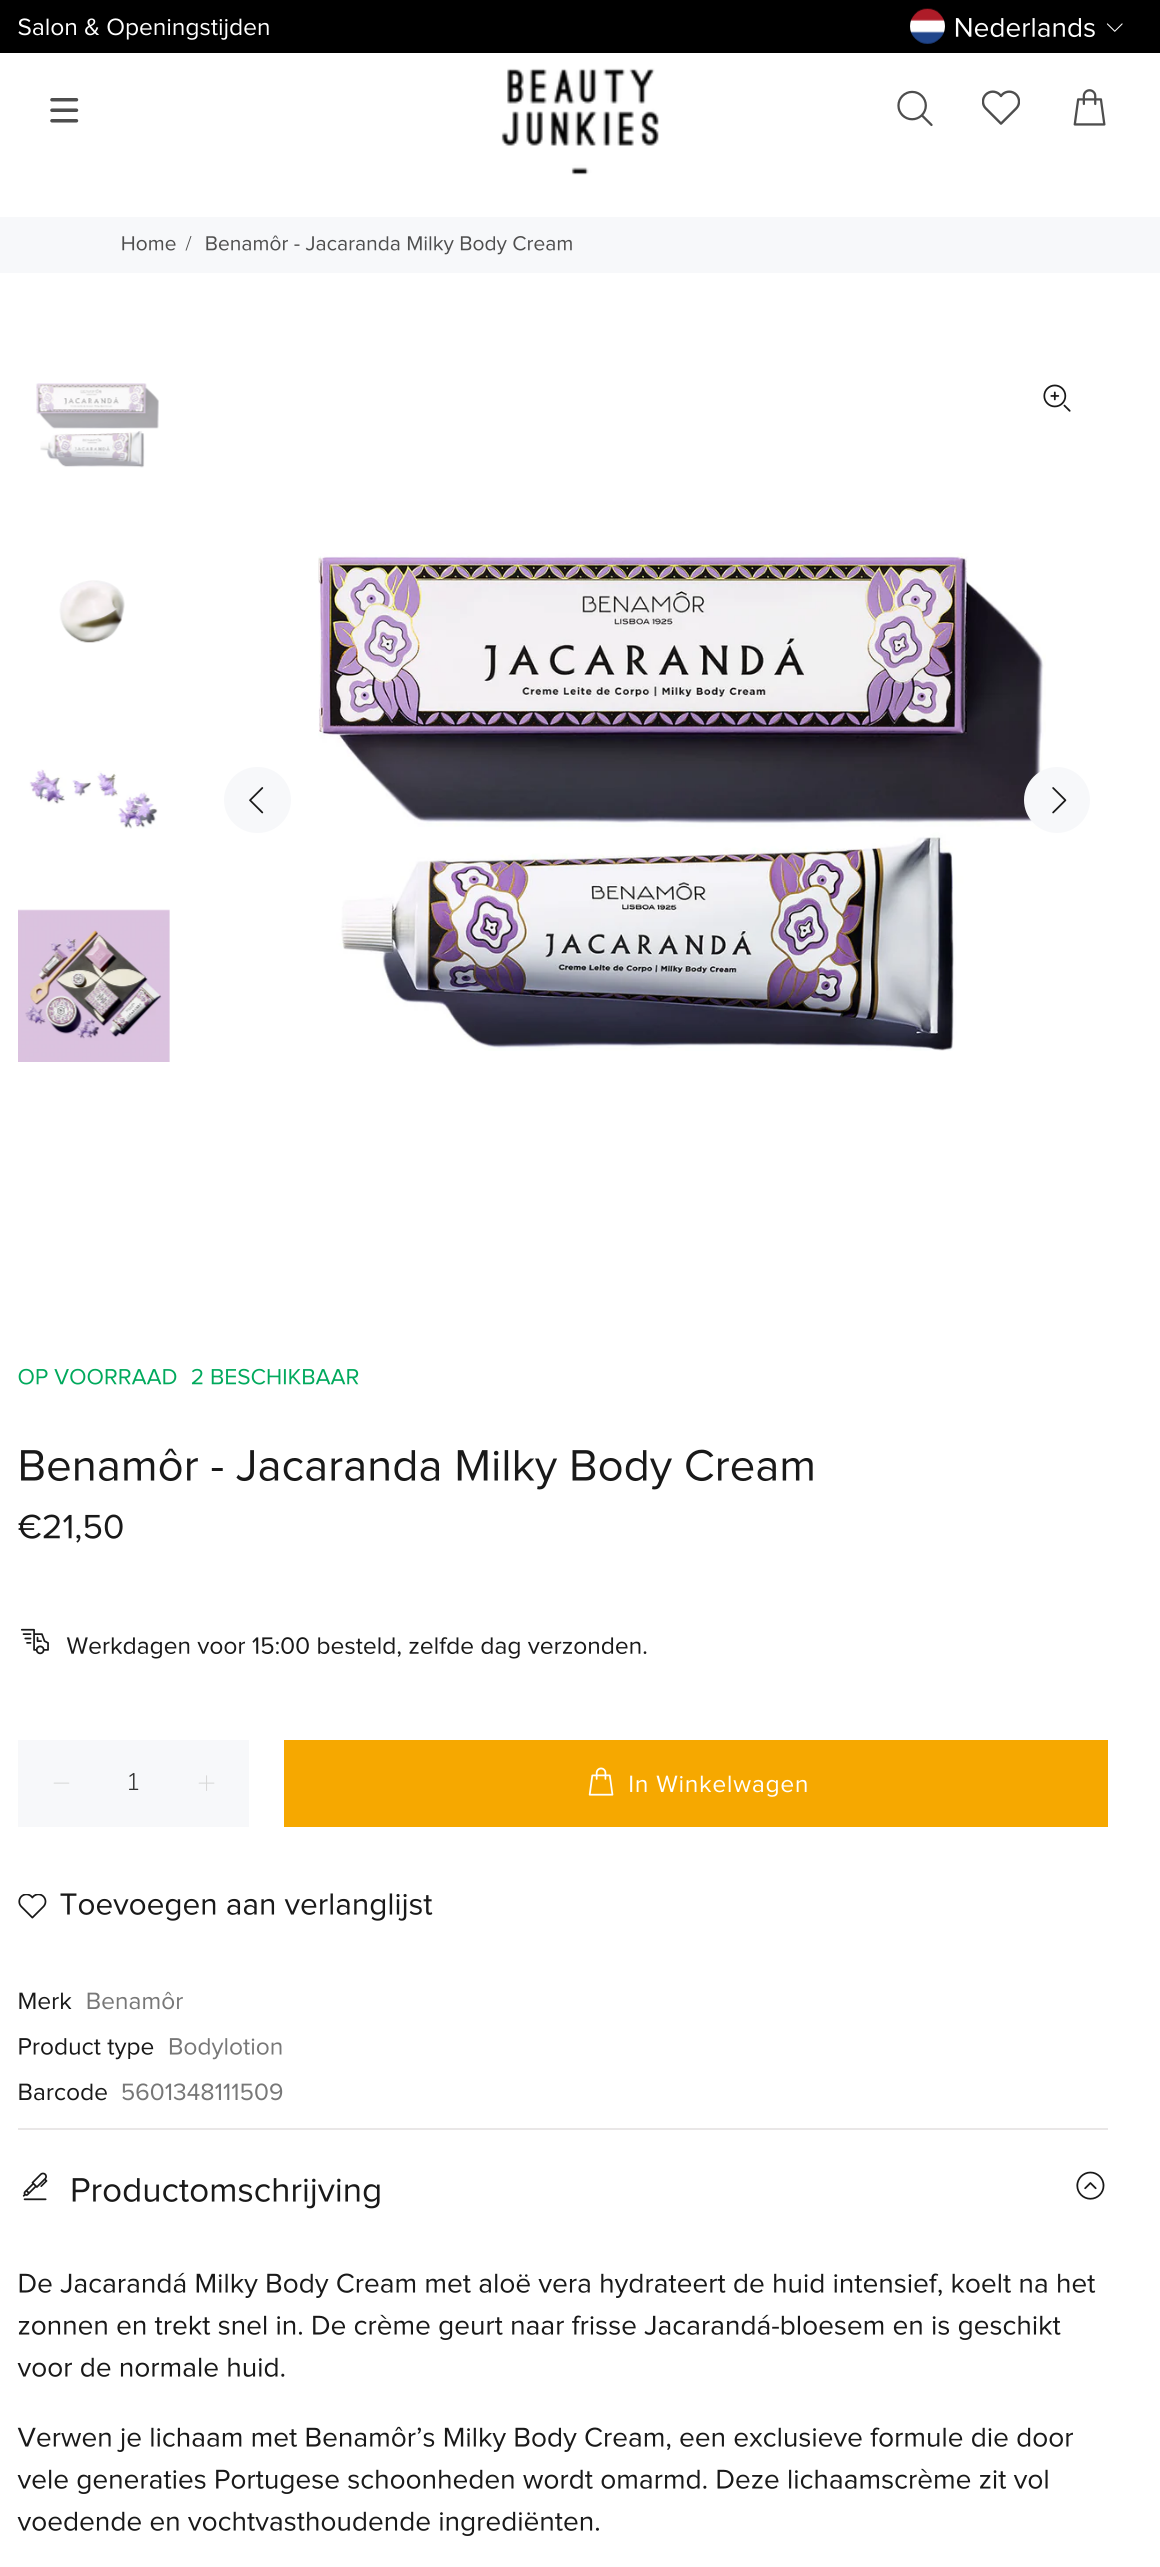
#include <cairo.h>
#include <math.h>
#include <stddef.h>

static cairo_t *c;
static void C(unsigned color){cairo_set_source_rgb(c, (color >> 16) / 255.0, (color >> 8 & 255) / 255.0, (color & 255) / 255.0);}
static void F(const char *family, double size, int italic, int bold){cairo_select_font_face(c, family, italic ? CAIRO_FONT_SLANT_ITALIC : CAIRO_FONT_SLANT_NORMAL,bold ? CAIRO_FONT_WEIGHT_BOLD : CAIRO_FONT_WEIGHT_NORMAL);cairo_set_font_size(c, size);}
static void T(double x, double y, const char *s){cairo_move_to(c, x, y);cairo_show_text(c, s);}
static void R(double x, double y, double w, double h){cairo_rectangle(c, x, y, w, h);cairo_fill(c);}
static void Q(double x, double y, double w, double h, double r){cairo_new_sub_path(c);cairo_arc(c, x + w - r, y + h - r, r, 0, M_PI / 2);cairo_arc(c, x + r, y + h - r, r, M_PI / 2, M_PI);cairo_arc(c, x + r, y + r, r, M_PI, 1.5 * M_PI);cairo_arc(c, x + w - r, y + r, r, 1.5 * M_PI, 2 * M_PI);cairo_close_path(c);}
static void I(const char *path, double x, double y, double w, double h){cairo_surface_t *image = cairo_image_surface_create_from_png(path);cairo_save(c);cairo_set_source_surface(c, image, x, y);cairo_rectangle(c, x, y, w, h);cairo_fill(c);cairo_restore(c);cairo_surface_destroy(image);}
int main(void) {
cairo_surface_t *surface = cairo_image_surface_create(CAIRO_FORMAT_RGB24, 1160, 2567);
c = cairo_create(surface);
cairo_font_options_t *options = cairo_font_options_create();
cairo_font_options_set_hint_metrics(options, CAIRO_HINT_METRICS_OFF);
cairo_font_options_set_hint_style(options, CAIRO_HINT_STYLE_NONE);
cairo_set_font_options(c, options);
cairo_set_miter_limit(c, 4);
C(0xffffff);
cairo_paint(c);
C(0x000000);
R(0,0,1160,53);
I("1.png",18,18,251,22);
I("2.png",910,8,35,36);
I("3.png",955,18,140,20);
I("4.png",1106,23,17,9);
I("5.png",50,98,29,25);
I("6.png",501,68,158,107);
I("7.png",897,90,36,37);
I("8.png",982,90,38,35);
I("9.png",1073,89,33,37);
C(0xf7f8fa);
R(0,217,1160,56);
I("10.png",122,236,54,15);
C(0x4e4e4e);
cairo_new_path(c);
cairo_move_to(c,186.5,250.5);
cairo_line_to(c,191.5,236);
cairo_line_to(c,190.5,236);
cairo_line_to(c,185.5,250.5);
cairo_close_path(c);
cairo_fill(c);
I("11.png",206,235,366,20);
I("12.png",35,383,124,85);
I("13.png",59,580,66,63);
I("14.png",29,769,129,60);
I("15.png",18,909,152,153);
I("16.png",1043,384,28,28);
I("17.png",318,553,728,498);
C(0xf7f8fa);
Q(224,767,67,66,33);
cairo_fill(c);
I("18.png",249,787,15,27);
cairo_arc(c,1057,800,33,0,2 * M_PI);
cairo_fill(c);
I("19.png",1052,787,15,27);
I("20.png",18,1368,159,17);
I("21.png",191,1368,12,17);
I("22.png",211,1368,148,17);
I("23.png",21,1448,792,42);
I("24.png",18,1514,105,29);
I("25.png",20,1628,29,27);
I("26.png",66,1637,581,22);
R(18,1740,231,87);
I("27.png",53,1782,17,2);
F("Nunito Light",24,0,0);
C(0x333333);
T(126,1790,"1");
I("28.png",198,1775,17,16);
C(0xf6a800);
R(284,1740,824,87);
I("29.png",588,1767,26,29);
I("30.png",630,1775,177,22);
I("31.png",18,1894,29,25);
I("32.png",60,1893,373,28);
I("33.png",19,1992,53,18);
I("34.png",87,1991,96,19);
I("35.png",19,2038,135,22);
I("36.png",169,2038,113,22);
I("37.png",19,2083,88,18);
I("38.png",122,2083,161,18);
C(0xe9e7e7);
R(18,2128,1090,2);
I("39.png",22,2172,26,29);
I("40.png",72,2178,308,31);
I("41.png",1076,2171,29,29);
I("42.png",19,2272,1077,26);
I("43.png",18,2314,1043,26);
I("44.png",17,2357,268,20);
I("45.png",17,2426,1056,26);
I("46.png",17,2468,1031,26);
I("47.png",17,2511,582,25);
cairo_surface_write_to_png(surface, "o.png");
cairo_font_options_destroy(options);
cairo_destroy(c);
cairo_surface_destroy(surface);
return 0;
}
